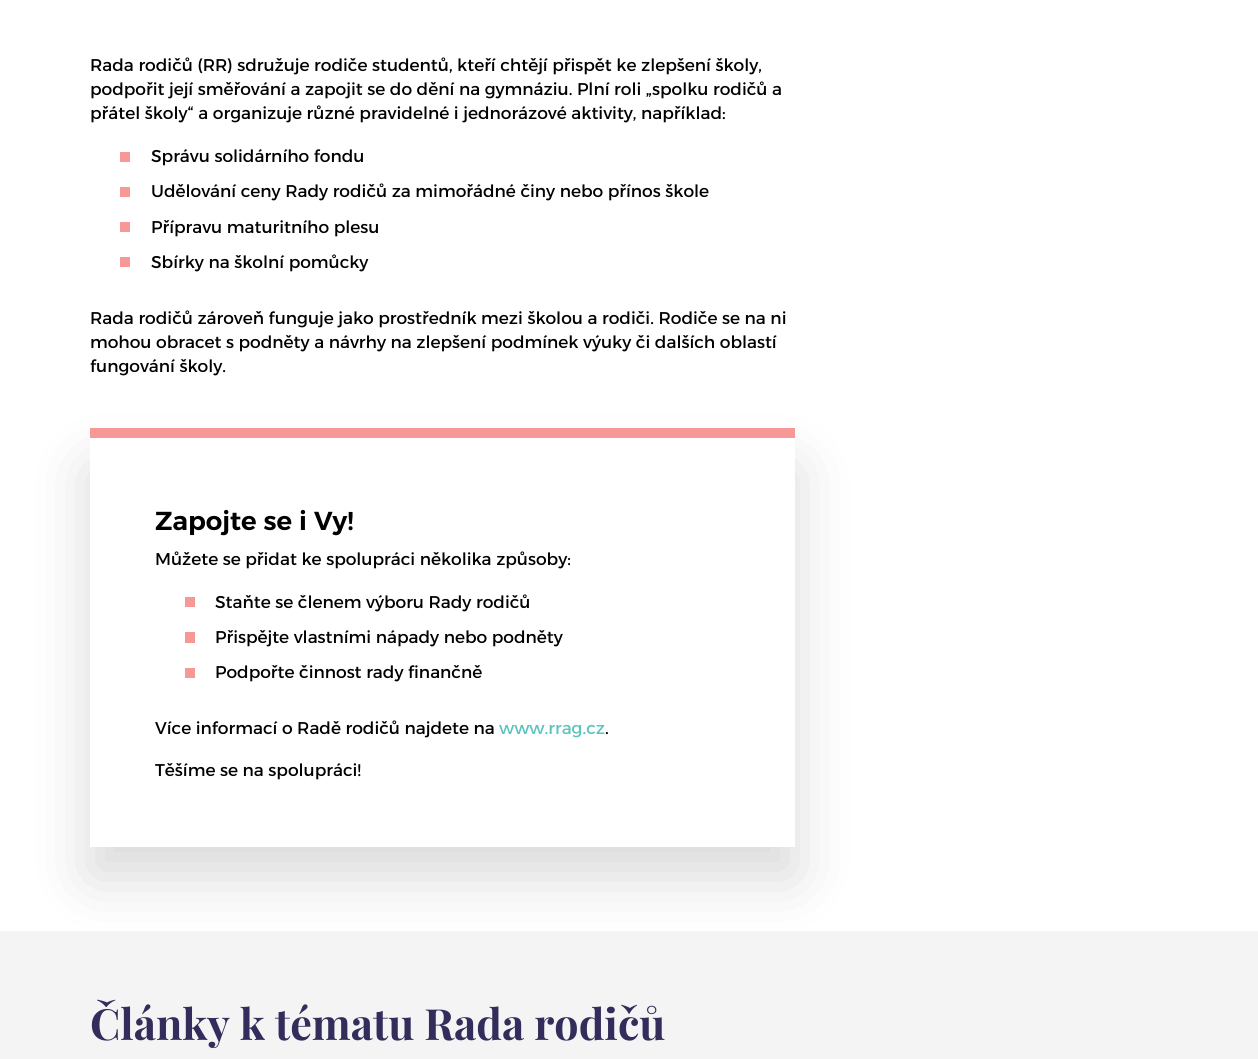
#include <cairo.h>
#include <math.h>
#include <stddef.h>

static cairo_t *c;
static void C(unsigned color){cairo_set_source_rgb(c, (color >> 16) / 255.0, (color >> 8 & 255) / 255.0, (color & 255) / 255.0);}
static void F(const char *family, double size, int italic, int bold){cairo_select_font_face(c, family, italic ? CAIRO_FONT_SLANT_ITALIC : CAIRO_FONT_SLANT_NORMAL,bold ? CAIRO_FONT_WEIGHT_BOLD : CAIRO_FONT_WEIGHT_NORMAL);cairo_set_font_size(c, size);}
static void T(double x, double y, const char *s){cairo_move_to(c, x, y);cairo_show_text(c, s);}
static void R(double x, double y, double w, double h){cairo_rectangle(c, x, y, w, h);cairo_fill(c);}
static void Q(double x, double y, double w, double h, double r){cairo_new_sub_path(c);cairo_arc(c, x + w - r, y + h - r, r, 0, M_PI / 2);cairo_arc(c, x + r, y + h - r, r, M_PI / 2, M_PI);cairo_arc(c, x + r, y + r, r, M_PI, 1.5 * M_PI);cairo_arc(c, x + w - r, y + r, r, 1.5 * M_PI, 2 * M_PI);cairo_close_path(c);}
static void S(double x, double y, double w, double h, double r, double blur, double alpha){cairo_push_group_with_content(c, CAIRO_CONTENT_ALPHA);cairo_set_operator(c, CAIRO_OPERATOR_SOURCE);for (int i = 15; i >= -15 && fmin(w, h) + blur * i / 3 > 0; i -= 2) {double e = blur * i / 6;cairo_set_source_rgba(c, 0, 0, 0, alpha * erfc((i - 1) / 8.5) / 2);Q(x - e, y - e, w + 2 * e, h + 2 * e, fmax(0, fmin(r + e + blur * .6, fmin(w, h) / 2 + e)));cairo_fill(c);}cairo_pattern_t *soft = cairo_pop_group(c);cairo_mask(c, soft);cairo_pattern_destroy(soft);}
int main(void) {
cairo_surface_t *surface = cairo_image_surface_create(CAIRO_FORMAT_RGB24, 1258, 1059);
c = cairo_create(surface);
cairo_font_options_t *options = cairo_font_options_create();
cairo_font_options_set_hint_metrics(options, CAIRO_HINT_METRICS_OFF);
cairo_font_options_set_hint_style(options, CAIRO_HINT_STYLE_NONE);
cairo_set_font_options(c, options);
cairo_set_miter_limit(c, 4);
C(0xffffff);
cairo_paint(c);
F("Alexandria",17,0,0);
C(0x000000);
T(90,71,"Rada rodičů (RR) sdružuje rodiče studentů, kteří chtějí přispět ke zlepšení školy,");
T(90,95,"podpořit její směřování a zapojit se do dění na gymnáziu. Plní roli „spolku rodičů a");
T(90,119,"přátel školy“ a organizuje různé pravidelné i jednorázové aktivity, například:");
C(0xf59896);
R(120,152,10,10);
C(0x000000);
T(151,162,"Správu solidárního fondu");
C(0xf59896);
R(120,187,10,10);
C(0x000000);
T(151,197,"Udělování ceny Rady rodičů za mimořádné činy nebo přínos škole");
C(0xf59896);
R(120,222,10,10);
C(0x000000);
T(151,233,"Přípravu maturitního plesu");
C(0xf59896);
R(120,257,10,10);
C(0x000000);
T(151,268,"Sbírky na školní pomůcky");
T(90,324,"Rada rodičů zároveň funguje jako prostředník mezi školou a rodiči. Rodiče se na ni");
T(90,348,"mohou obracet s podněty a návrhy na zlepšení podmínek výuky či dalších oblastí");
T(90,372,"fungování školy.");
C(0xf4f4f4);
R(0,931,1258,128);
cairo_save(c);
cairo_set_fill_rule(c,CAIRO_FILL_RULE_EVEN_ODD);
cairo_new_path(c);
cairo_move_to(c,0,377);
cairo_line_to(c,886,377);
cairo_line_to(c,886,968);
cairo_line_to(c,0,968);
cairo_close_path(c);
cairo_move_to(c,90,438);
cairo_line_to(c,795,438);
cairo_line_to(c,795,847);
cairo_line_to(c,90,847);
cairo_close_path(c);
cairo_clip(c);
C(0x000000);
S(90,468,705,409,0,30,.15);
cairo_restore(c);
C(0xf59896);
R(90,428,705,10);
F("Alexandria SemiBold",26,0,0);
C(0x000000);
T(155,530,"Zapojte se i Vy!");
F("Alexandria",17,0,0);
T(155,565,"Můžete se přidat ke spolupráci několika způsoby:");
C(0xf59896);
R(185,597,10,10);
C(0x000000);
T(215,608,"Staňte se členem výboru Rady rodičů");
C(0xf59896);
R(185,632,10,11);
C(0x000000);
T(215,643,"Přispějte vlastními nápady nebo podněty");
C(0xf59896);
R(185,668,10,10);
C(0x000000);
T(215,678,"Podpořte činnost rady finančně");
T(155,734,"Více informací o Radě rodičů najdete na");
C(0x5ac4be);
T(499,734,"www.rrag.cz");
C(0x000000);
T(605,734,".");
T(155,776,"Těšíme se na spolupráci!");
F("Playfair Display",43,0,1);
C(0x322d5a);
T(90,1040,"Články k tématu Rada rodičů");
cairo_surface_write_to_png(surface, "o.png");
cairo_font_options_destroy(options);
cairo_destroy(c);
cairo_surface_destroy(surface);
return 0;
}
